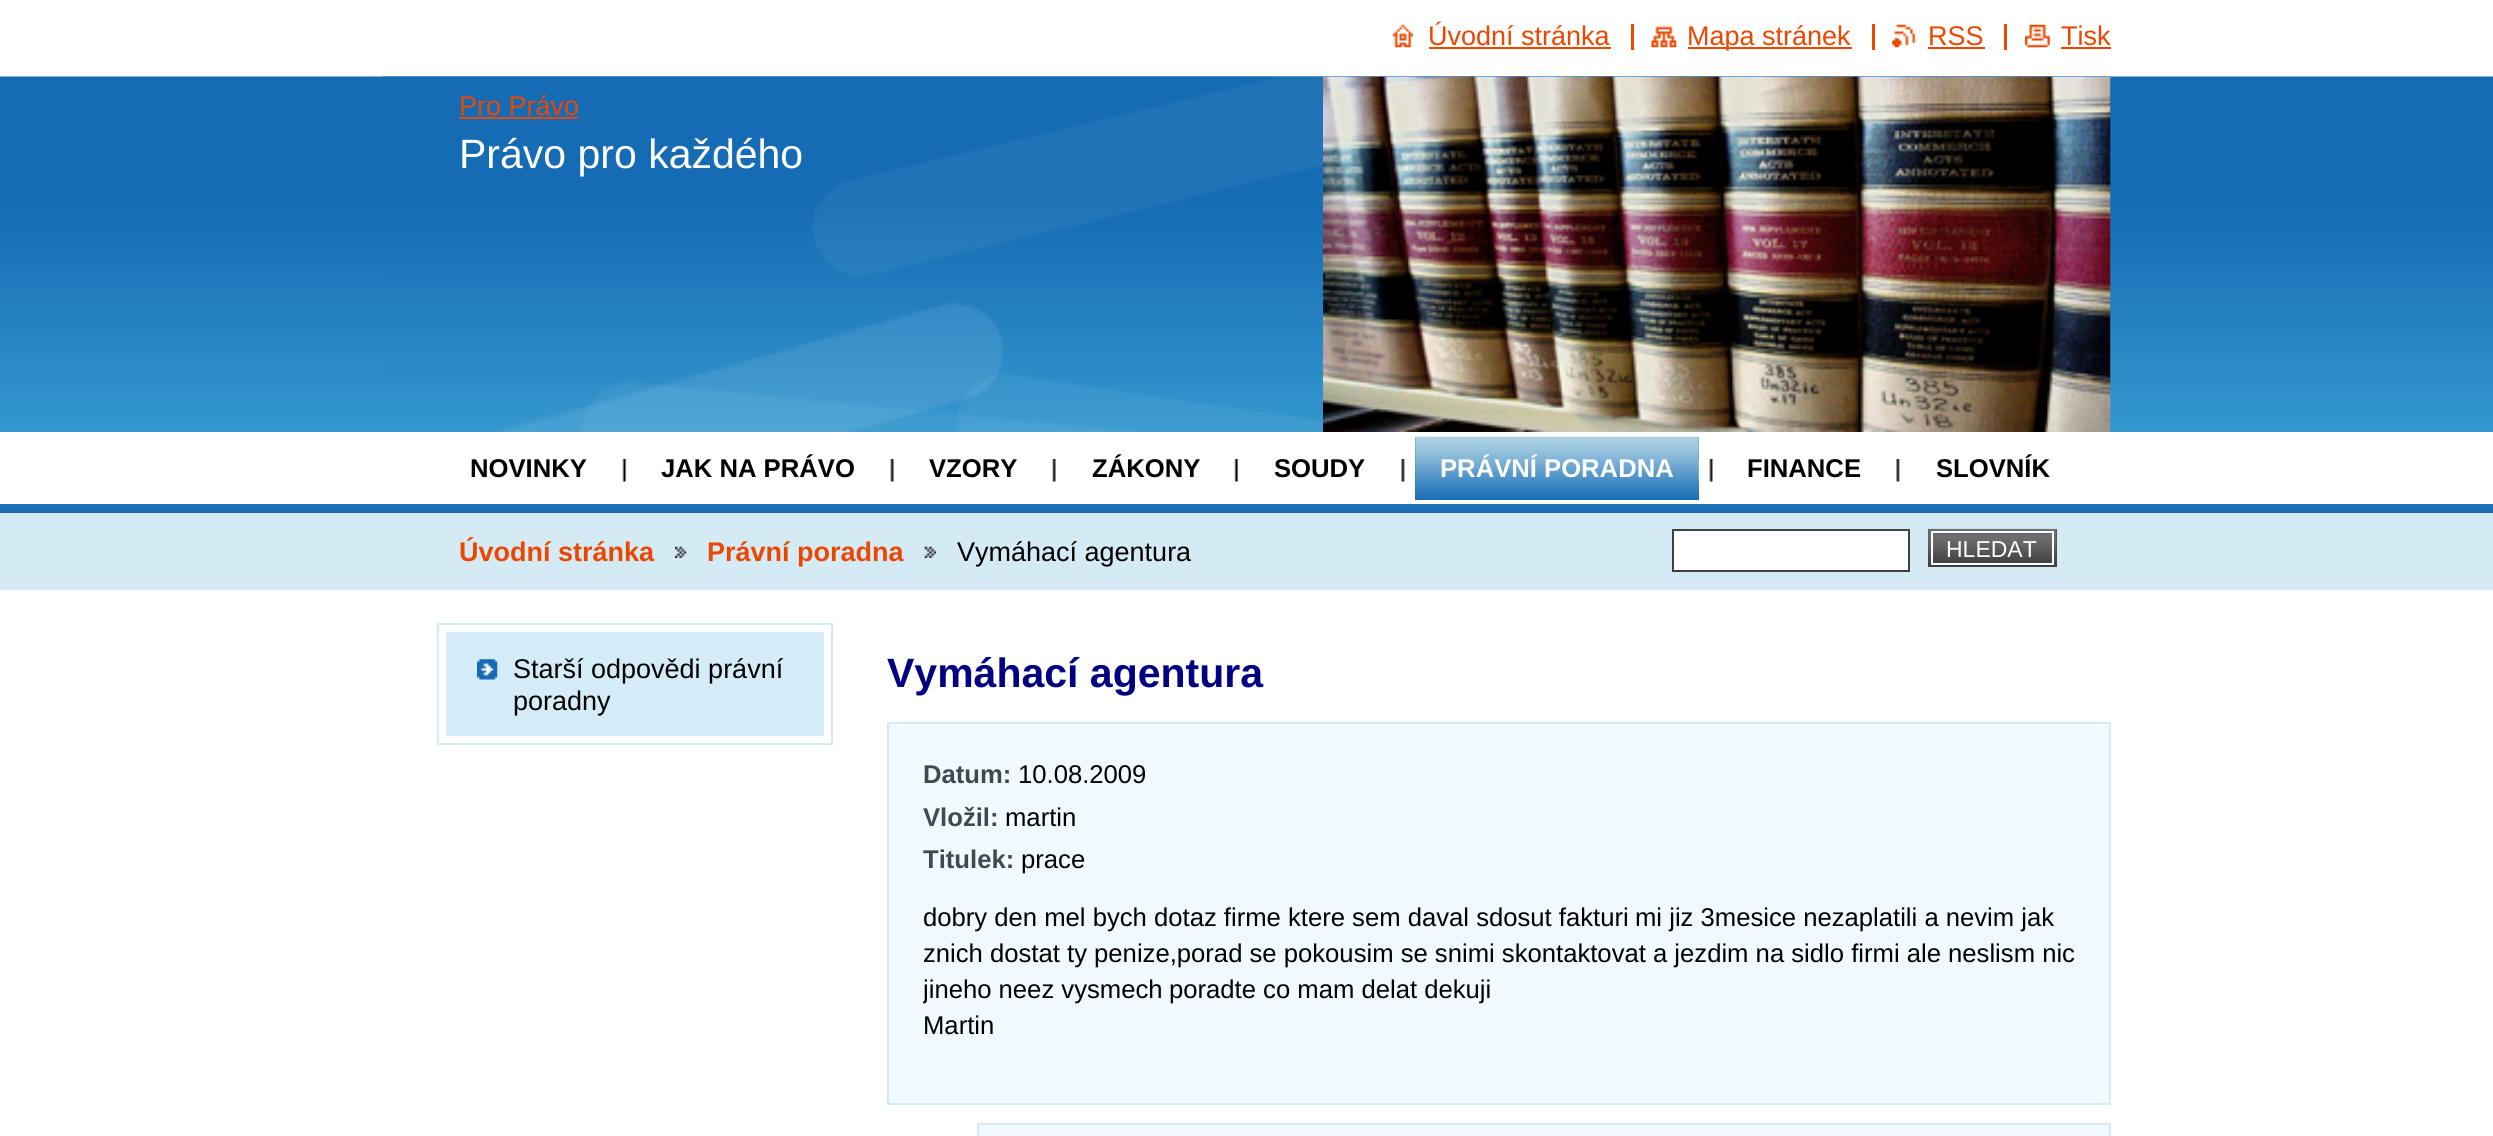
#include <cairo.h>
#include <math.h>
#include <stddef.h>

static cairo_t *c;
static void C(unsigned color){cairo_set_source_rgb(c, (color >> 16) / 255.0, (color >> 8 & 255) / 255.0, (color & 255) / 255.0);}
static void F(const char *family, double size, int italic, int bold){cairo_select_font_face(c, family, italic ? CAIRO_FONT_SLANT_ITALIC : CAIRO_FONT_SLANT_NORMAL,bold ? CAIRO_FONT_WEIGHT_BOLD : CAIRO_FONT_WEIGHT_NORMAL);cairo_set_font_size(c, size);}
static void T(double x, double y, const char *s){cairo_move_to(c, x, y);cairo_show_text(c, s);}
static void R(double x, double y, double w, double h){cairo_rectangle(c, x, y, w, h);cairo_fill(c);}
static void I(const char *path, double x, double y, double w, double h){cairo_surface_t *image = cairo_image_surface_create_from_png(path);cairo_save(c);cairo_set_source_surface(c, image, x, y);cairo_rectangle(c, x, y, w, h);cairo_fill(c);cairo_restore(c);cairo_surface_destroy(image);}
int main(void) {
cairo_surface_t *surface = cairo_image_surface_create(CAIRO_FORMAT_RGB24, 2493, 1136);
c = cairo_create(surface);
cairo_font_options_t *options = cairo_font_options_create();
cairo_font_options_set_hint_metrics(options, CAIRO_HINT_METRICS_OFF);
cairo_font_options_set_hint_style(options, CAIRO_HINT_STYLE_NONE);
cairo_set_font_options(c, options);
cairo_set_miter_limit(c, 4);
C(0xffffff);
cairo_paint(c);
I("1.png",1392,24,21,24);
F("Liberation Sans",27,0,0);
C(0xec4700);
T(1428,45,"Úvodní stránka");
R(1429,47,182,2);
I("2.png",1651,26,26,22);
R(1688,47,164,2);
T(1687,45,"Mapa stránek");
C(0xe84b00);
R(1631,24,3,26);
I("3.png",1892,24,24,24);
C(0xec4700);
T(1928,45,"RSS");
C(0xe84b00);
R(1872,24,3,26);
C(0xec4700);
R(1928,47,57,2);
I("4.png",2025,24,25,24);
T(2061,45,"Tisk");
C(0xe84b00);
R(2004,24,3,26);
C(0xec4700);
R(2061,47,50,2);
I("5.png",0,76,2493,356);
I("6.png",382,76,1729,356);
T(459,115,"Pro Právo");
R(459,117,119,2);
F("Liberation Sans",41,0,0);
C(0xffffff);
T(459,168,"Právo pro každého");
I("7.png",1323,76,788,356);
F("Liberation Sans",25.65,0,1);
C(0x000000);
T(470,477,"NOVINKY");
I("8.png",622,459,5,23);
T(661,477,"JAK NA PRÁVO");
I("9.png",890,459,4,23);
T(929,477,"VZORY");
I("9.png",1052,459,4,23);
T(1092,477,"ZÁKONY");
I("10.png",1234,459,5,23);
T(1274,477,"SOUDY");
I("11.png",1401,459,4,23);
C(0x186db5);
R(1415,437,284,63);
I("12.png",1415,436,284,63);
C(0xffffff);
T(1440,477,"PRÁVNÍ PORADNA");
I("13.png",1698,459,15,23);
C(0x000000);
T(1747,477,"FINANCE");
I("11.png",1896,459,4,23);
T(1936,477,"SLOVNÍK");
C(0xd4eaf5);
R(0,513,2493,77);
I("14.png",0,504,2493,9);
F("Liberation Sans",27,0,1);
C(0xec4700);
T(459,561,"Úvodní stránka");
I("15.png",675,546,12,12);
T(707,561,"Právní poradna");
I("16.png",924,546,12,12);
F("Liberation Sans",27,0,0);
C(0x000000);
T(957,561,"Vymáhací agentura");
C(0xffffff);
cairo_rectangle(c,1673,530,236,41);
cairo_fill_preserve(c);
C(0x404040);
cairo_stroke(c);
R(1928,529,129,38);
I("17.png",1928,528,129,34);
R(1933,533,119,29);
I("18.png",1933,533,119,29);
cairo_rectangle(c,1932,532,121,32);
C(0xffffff);
cairo_stroke(c);
F("Liberation Sans",23,0,0);
T(1946,557,"HLEDAT");
cairo_rectangle(c,438,624,394,120);
C(0xd3ecf8);
cairo_stroke(c);
R(446,632,378,104);
I("19.png",477,659,21,21);
F("Liberation Sans",27,0,0);
C(0x000000);
T(513,678,"Starší odpovědi právní");
T(513,710,"poradny");
F("Liberation Sans",41,0,1);
C(0x000080);
T(887,687,"Vymáhací agentura");
C(0xf0f9fe);
cairo_rectangle(c,888,723,1222,381);
cairo_fill_preserve(c);
C(0xd4eaf5);
cairo_stroke(c);
F("Liberation Sans",25.65,0,1);
C(0x3e4951);
T(923,783,"Datum:");
F("Liberation Sans",25.65,0,0);
C(0x000000);
T(1018,783,"10.08.2009");
F("Liberation Sans",25.65,0,1);
C(0x3e4951);
T(923,826,"Vložil:");
F("Liberation Sans",25.65,0,0);
C(0x000000);
T(1005,826,"martin");
cairo_save(c);
cairo_rectangle(c,923,844,1152,36);
cairo_clip(c);
F("Liberation Sans",25.65,0,1);
C(0x3e4951);
T(923,868,"Titulek:");
cairo_restore(c);
T(1021,868,"prace");
T(923,926,"dobry den mel bych dotaz firme ktere sem daval sdosut fakturi");
T(1635,926,"mi jiz 3mesice nezaplatili a nevim jak");
T(923,962,"znich dostat ty penize,porad se pokousim se snimi skontaktovat a jezdim na sidlo firmi ale neslism nic");
cairo_save(c);
cairo_rectangle(c,923,902,1152,144);
cairo_clip(c);
T(923,998,"jineho neez vysmech");
cairo_restore(c);
T(1169,998,"poradte co mam delat dekuji");
T(923,1034,"Martin");
C(0xf0f9fe);
cairo_rectangle(c,978,1124,1132,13);
cairo_fill_preserve(c);
C(0xd4eaf5);
cairo_stroke(c);
cairo_surface_write_to_png(surface, "o.png");
cairo_font_options_destroy(options);
cairo_destroy(c);
cairo_surface_destroy(surface);
return 0;
}
